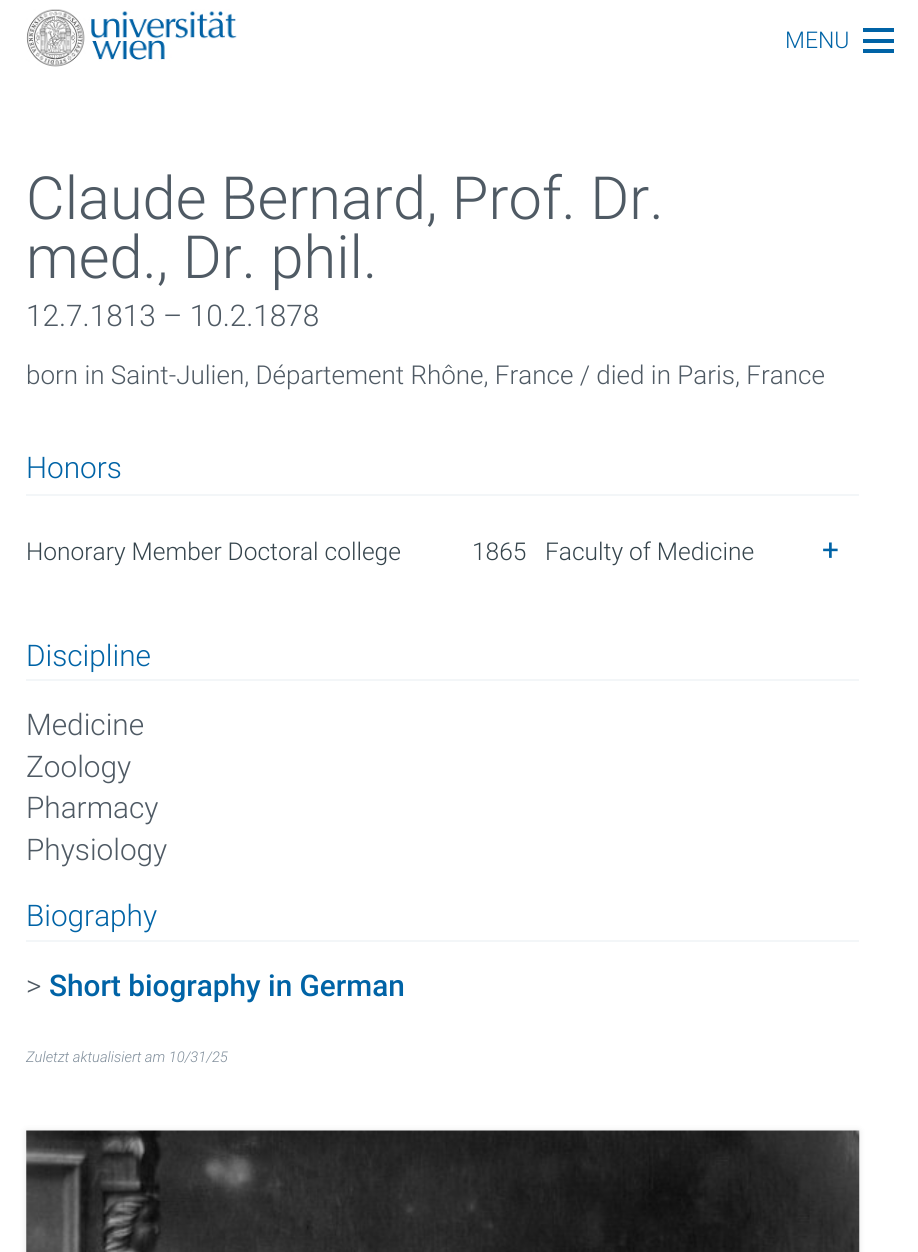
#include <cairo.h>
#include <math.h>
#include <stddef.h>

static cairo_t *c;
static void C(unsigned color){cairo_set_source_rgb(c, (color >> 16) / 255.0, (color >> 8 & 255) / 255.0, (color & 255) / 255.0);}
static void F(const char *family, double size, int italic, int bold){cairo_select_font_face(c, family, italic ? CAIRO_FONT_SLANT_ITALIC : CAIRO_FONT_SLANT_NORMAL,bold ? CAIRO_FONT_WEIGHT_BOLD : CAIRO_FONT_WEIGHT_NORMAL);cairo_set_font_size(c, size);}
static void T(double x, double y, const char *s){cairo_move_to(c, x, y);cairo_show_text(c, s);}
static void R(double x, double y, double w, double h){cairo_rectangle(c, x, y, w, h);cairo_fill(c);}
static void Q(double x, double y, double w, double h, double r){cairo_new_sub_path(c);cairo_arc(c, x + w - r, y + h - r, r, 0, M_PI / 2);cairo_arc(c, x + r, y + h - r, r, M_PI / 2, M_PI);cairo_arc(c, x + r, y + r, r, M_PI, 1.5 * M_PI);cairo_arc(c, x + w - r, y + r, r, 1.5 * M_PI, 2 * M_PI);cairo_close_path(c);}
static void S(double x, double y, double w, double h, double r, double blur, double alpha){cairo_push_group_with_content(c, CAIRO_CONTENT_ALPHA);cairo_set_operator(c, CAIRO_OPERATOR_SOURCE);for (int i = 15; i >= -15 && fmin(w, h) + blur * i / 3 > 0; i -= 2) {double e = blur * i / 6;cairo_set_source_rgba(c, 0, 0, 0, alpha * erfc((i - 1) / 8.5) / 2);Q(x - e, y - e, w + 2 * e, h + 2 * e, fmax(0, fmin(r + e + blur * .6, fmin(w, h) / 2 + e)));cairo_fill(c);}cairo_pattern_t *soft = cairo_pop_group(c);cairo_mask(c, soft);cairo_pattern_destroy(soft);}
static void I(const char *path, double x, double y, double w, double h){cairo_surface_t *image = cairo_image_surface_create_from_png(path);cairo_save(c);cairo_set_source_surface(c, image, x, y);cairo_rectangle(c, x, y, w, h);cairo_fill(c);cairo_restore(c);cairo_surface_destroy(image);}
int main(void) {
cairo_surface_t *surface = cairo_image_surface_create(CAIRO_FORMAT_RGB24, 918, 1252);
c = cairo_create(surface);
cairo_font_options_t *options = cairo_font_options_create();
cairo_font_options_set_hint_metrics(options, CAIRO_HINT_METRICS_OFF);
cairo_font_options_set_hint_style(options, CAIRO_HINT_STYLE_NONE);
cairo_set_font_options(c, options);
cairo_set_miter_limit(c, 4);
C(0xffffff);
cairo_paint(c);
I("1.png",26,9,211,58);
F("Roboto Light",23,0,0);
C(0x0063a6);
T(785,48,"MENU");
R(863,49,31,4);
R(863,39,31,4);
R(863,28,31,4);
F("Roboto Light",59.5,0,0);
C(0x4f5a64);
T(26,219,"Claude Bernard, Prof. Dr.");
T(26,278,"med., Dr. phil.");
F("Roboto Light",29.75,0,0);
T(26,326,"12.7.1813 – 10.2.1878");
F("Roboto Light",26,0,0);
T(26,384,"born in Saint-Julien, Département Rhône, France / died in Paris, France");
C(0xf3f6f8);
R(26,494,833,2);
F("Roboto Light",29.75,0,0);
C(0x0063a6);
T(26,478,"Honors");
F("Roboto Light",24.5,0,0);
C(0x35444c);
T(26,560,"Honorary Member Doctoral college");
T(472,560,"1865");
T(545,560,"Faculty of Medicine");
F("Roboto",29.75,0,0);
C(0x0063a6);
T(822,560,"+");
C(0xf3f6f8);
R(26,679,833,2);
F("Roboto Light",29.75,0,0);
C(0x0063a6);
T(26,666,"Discipline");
C(0x4f5a64);
T(26,735,"Medicine");
T(26,777,"Zoology");
T(26,818,"Pharmacy");
T(26,860,"Physiology");
C(0xf3f6f8);
R(26,940,833,2);
C(0x0063a6);
T(26,926,"Biography");
C(0x4f5a64);
T(26,996,">");
F("Roboto Medium",29.75,0,0);
C(0x0063a6);
T(49,996,"Short biography in German");
F("Roboto Light",14.75,1,0);
C(0x7f8d9a);
T(26,1062,"Zuletzt aktualisiert am 10/31/25");
C(0x000000);
S(26,1131,833,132,0,3.5,.1);
I("2.png",26,1130,834,122);
cairo_surface_write_to_png(surface, "o.png");
cairo_font_options_destroy(options);
cairo_destroy(c);
cairo_surface_destroy(surface);
return 0;
}
